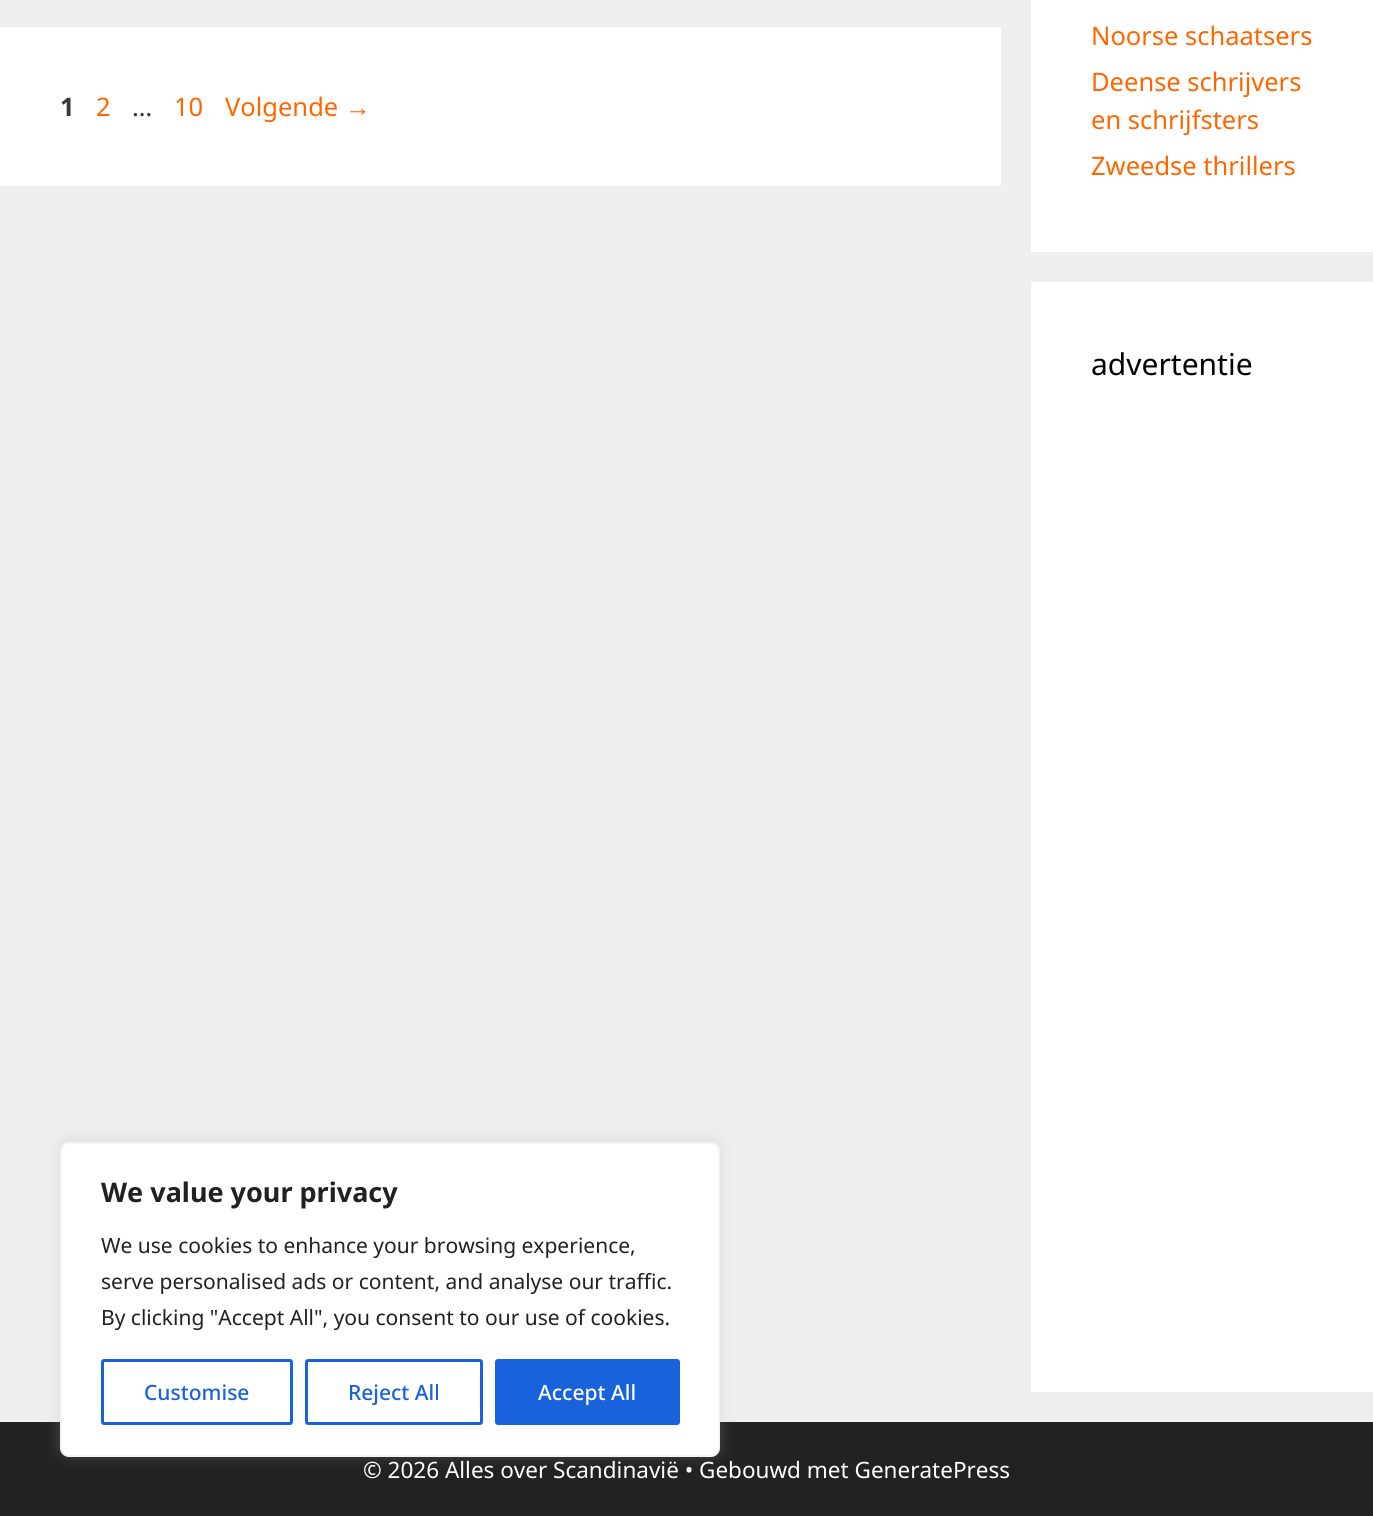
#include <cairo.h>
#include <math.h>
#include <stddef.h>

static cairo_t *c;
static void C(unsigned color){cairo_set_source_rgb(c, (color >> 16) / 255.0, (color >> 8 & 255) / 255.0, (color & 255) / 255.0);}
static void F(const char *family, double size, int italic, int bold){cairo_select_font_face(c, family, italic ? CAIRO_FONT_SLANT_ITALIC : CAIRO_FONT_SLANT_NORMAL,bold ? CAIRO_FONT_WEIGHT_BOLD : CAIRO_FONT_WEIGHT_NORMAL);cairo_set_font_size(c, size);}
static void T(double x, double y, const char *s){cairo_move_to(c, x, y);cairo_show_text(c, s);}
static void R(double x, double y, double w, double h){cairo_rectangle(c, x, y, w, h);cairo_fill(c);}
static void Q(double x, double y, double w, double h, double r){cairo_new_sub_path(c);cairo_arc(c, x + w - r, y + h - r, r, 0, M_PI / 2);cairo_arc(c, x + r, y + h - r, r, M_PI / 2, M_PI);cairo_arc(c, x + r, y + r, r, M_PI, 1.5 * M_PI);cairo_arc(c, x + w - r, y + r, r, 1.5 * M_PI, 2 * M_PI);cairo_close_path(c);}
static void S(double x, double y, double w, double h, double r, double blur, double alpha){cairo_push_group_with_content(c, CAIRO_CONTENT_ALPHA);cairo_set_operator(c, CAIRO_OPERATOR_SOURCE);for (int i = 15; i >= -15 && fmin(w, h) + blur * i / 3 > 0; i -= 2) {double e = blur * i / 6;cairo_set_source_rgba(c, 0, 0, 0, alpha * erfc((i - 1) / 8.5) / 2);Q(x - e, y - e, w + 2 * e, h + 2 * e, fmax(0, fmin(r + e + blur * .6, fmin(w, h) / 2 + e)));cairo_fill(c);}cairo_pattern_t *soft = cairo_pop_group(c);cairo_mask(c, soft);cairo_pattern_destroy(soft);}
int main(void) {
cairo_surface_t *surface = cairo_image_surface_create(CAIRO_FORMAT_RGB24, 1373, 1516);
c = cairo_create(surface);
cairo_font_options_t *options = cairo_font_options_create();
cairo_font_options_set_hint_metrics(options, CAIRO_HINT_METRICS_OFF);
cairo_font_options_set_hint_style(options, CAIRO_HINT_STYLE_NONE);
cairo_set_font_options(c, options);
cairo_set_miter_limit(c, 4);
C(0xefefef);
cairo_paint(c);
C(0xffffff);
R(0,27,1001,159);
F("Noto Sans",25.5,0,1);
C(0x3a3a3a);
T(60,116,"1");
F("Noto Sans",25.5,0,0);
C(0xff6600);
T(96,116,"2");
C(0x3a3a3a);
T(132,116,"…");
C(0xff6600);
T(174,116,"10");
T(225,116,"Volgende");
F("Liberation Sans",25.5,0,0);
T(345,116,"→");
C(0xffffff);
R(1031,0,342,252);
F("Noto Sans",25.5,0,0);
C(0xff6600);
T(1091,45,"Noorse schaatsers");
T(1091,91,"Deense schrijvers");
T(1091,129,"en schrijfsters");
T(1091,175,"Zweedse thrillers");
C(0xffffff);
R(1031,282,342,1110);
F("Noto Sans",30,0,0);
C(0x000000);
T(1091,375,"advertentie");
C(0x222222);
R(0,1422,1373,94);
C(0xacabab);
S(60,1140,660,315,9,7.5,.3);
C(0xffffff);
Q(61,1143,658,313,8);
cairo_fill_preserve(c);
C(0xf4f4f4);
cairo_stroke(c);
F("Noto Sans",27,0,1);
C(0x212121);
T(101,1202,"We value your privacy");
F("Noto Sans",21,0,0);
T(101,1253,"We use cookies to enhance your browsing experience,");
T(101,1289,"serve personalised ads or content, and analyse our traffic.");
T(101,1325,"By clicking \"Accept All\", you consent to our use of cookies.");
Q(102.5,1360.5,189,63,1.5);
C(0x1863dc);
cairo_set_line_width(c,3);
cairo_stroke(c);
F("Noto Sans Medium",21,0,0);
T(144,1400,"Customise");
Q(306.5,1360.5,175,63,1.5);
cairo_stroke(c);
T(348,1400,"Reject All");
Q(496.5,1360.5,182,63,1.5);
cairo_fill_preserve(c);
cairo_stroke(c);
C(0xffffff);
T(538,1400,"Accept All");
F("Noto Sans",22.5,0,0);
T(363,1478,"© 2026 Alles over Scandinavië • Gebouwd met GeneratePress");
cairo_surface_write_to_png(surface, "o.png");
cairo_font_options_destroy(options);
cairo_destroy(c);
cairo_surface_destroy(surface);
return 0;
}
